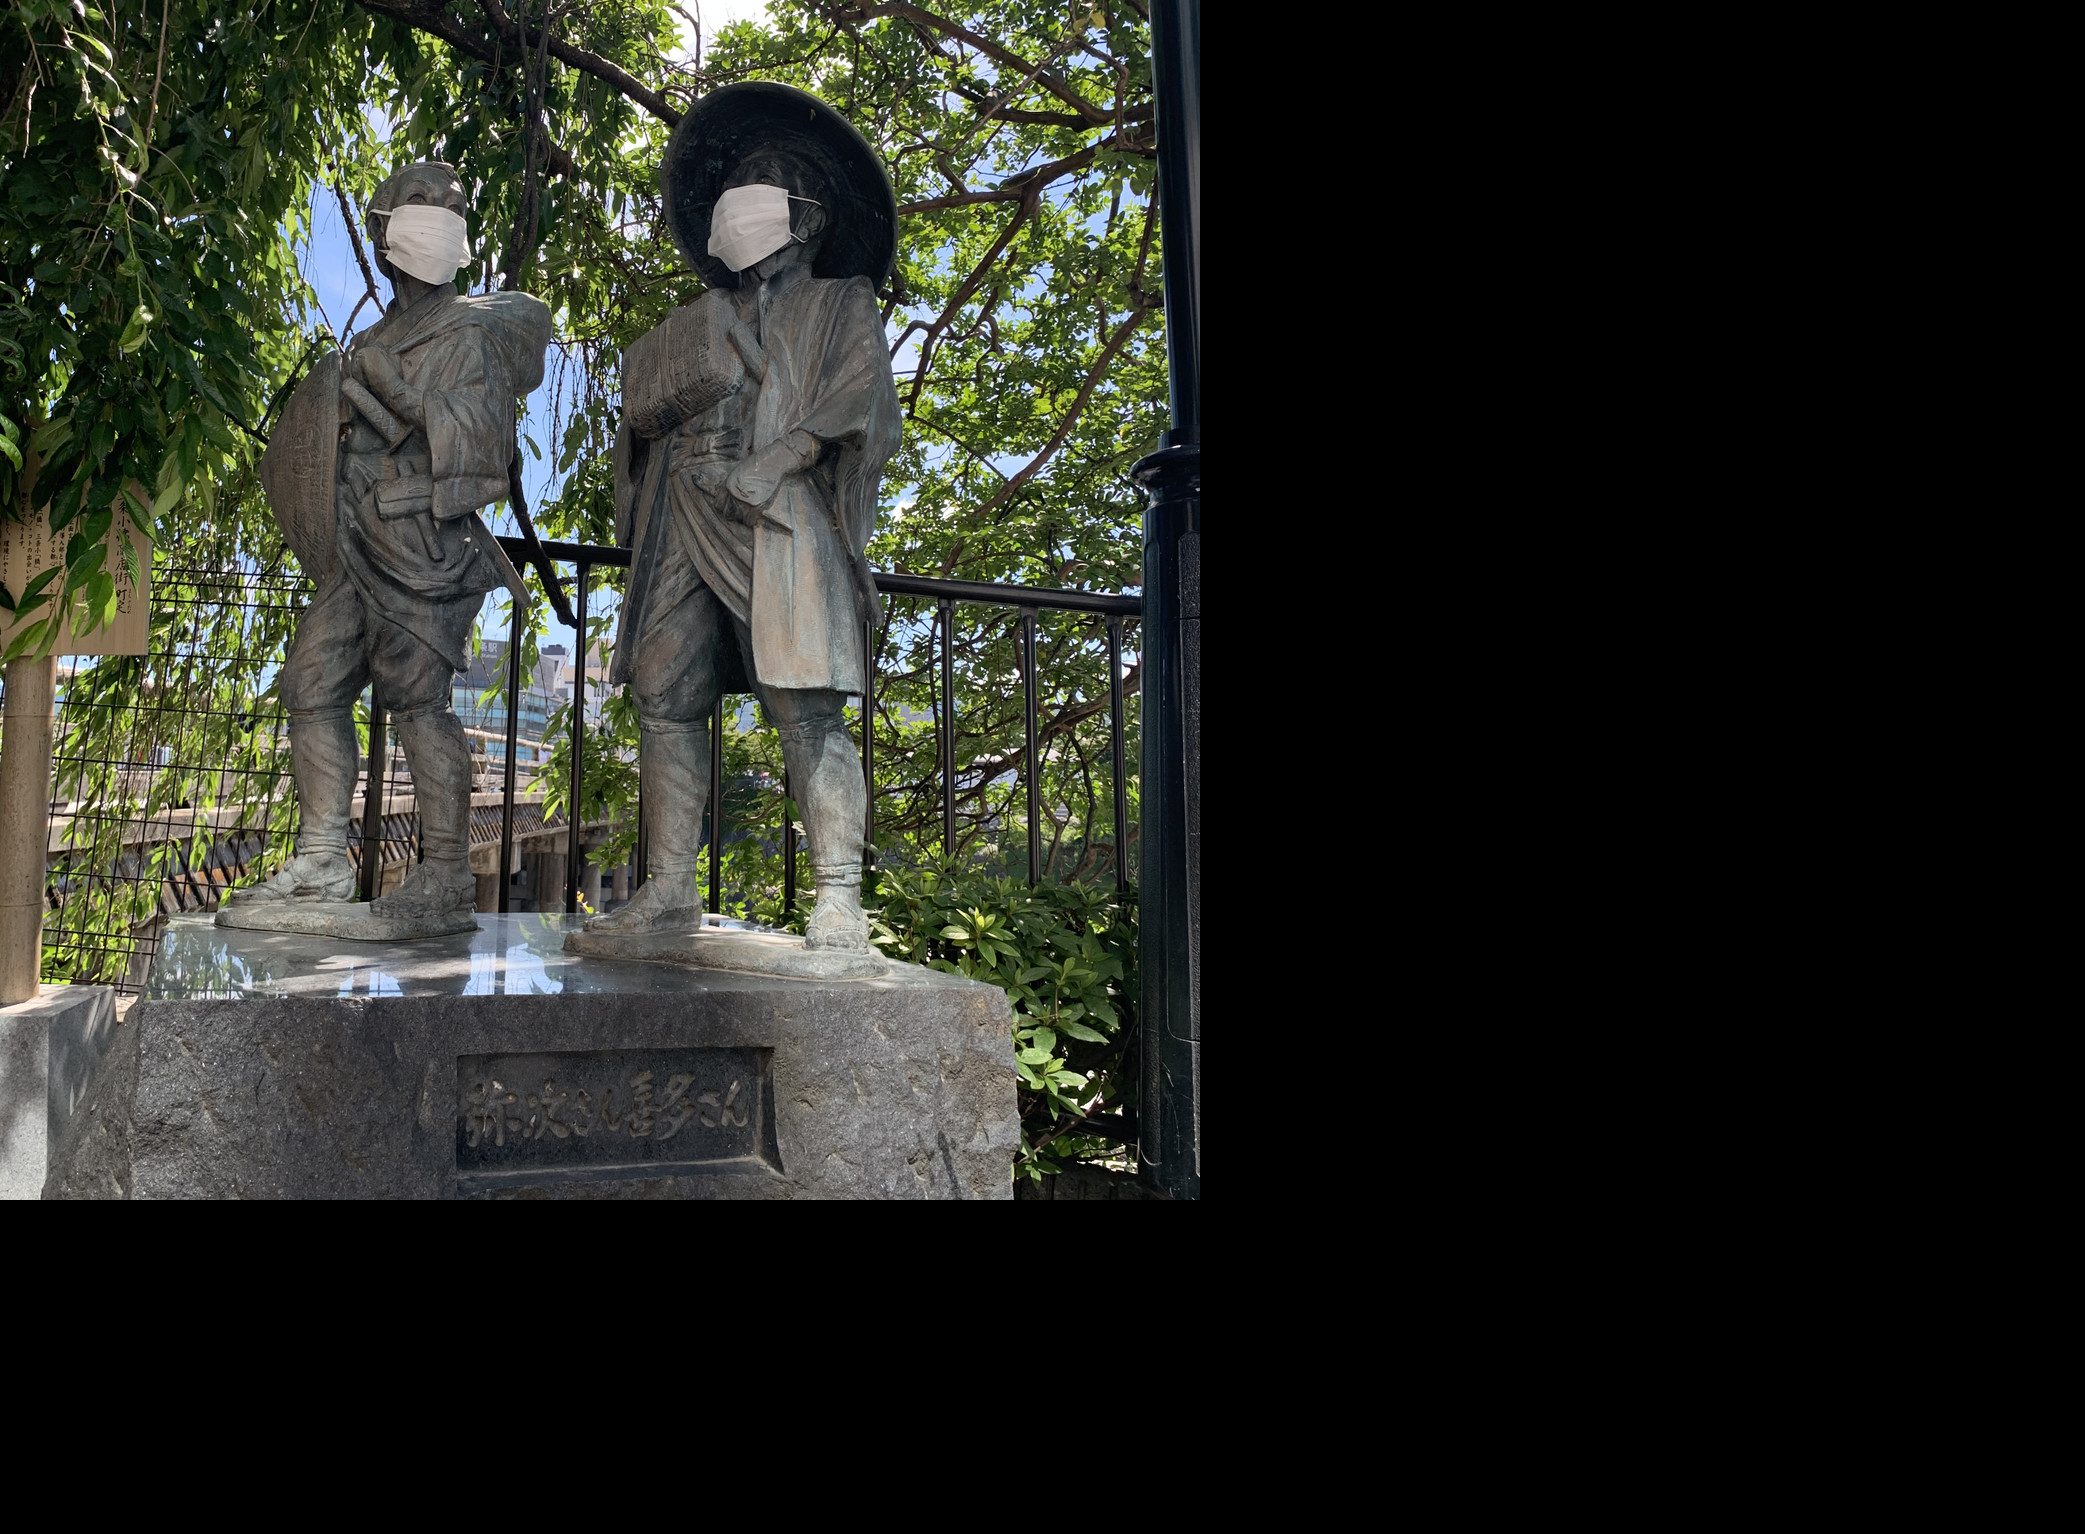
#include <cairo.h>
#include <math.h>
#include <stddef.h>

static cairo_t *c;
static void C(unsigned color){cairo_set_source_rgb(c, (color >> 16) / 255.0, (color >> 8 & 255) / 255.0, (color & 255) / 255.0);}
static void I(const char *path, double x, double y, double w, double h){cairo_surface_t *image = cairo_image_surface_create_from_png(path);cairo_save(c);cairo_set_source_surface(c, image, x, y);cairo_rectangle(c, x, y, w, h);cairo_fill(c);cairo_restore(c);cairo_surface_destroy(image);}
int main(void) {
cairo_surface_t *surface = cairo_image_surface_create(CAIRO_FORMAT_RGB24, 2085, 1534);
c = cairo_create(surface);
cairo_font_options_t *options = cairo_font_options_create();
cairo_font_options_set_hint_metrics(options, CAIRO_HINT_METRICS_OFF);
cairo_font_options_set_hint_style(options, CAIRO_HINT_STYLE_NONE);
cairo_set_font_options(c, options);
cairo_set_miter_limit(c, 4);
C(0x000000);
cairo_paint(c);
I("1.png",0,0,1200,1200);
cairo_surface_write_to_png(surface, "o.png");
cairo_font_options_destroy(options);
cairo_destroy(c);
cairo_surface_destroy(surface);
return 0;
}
